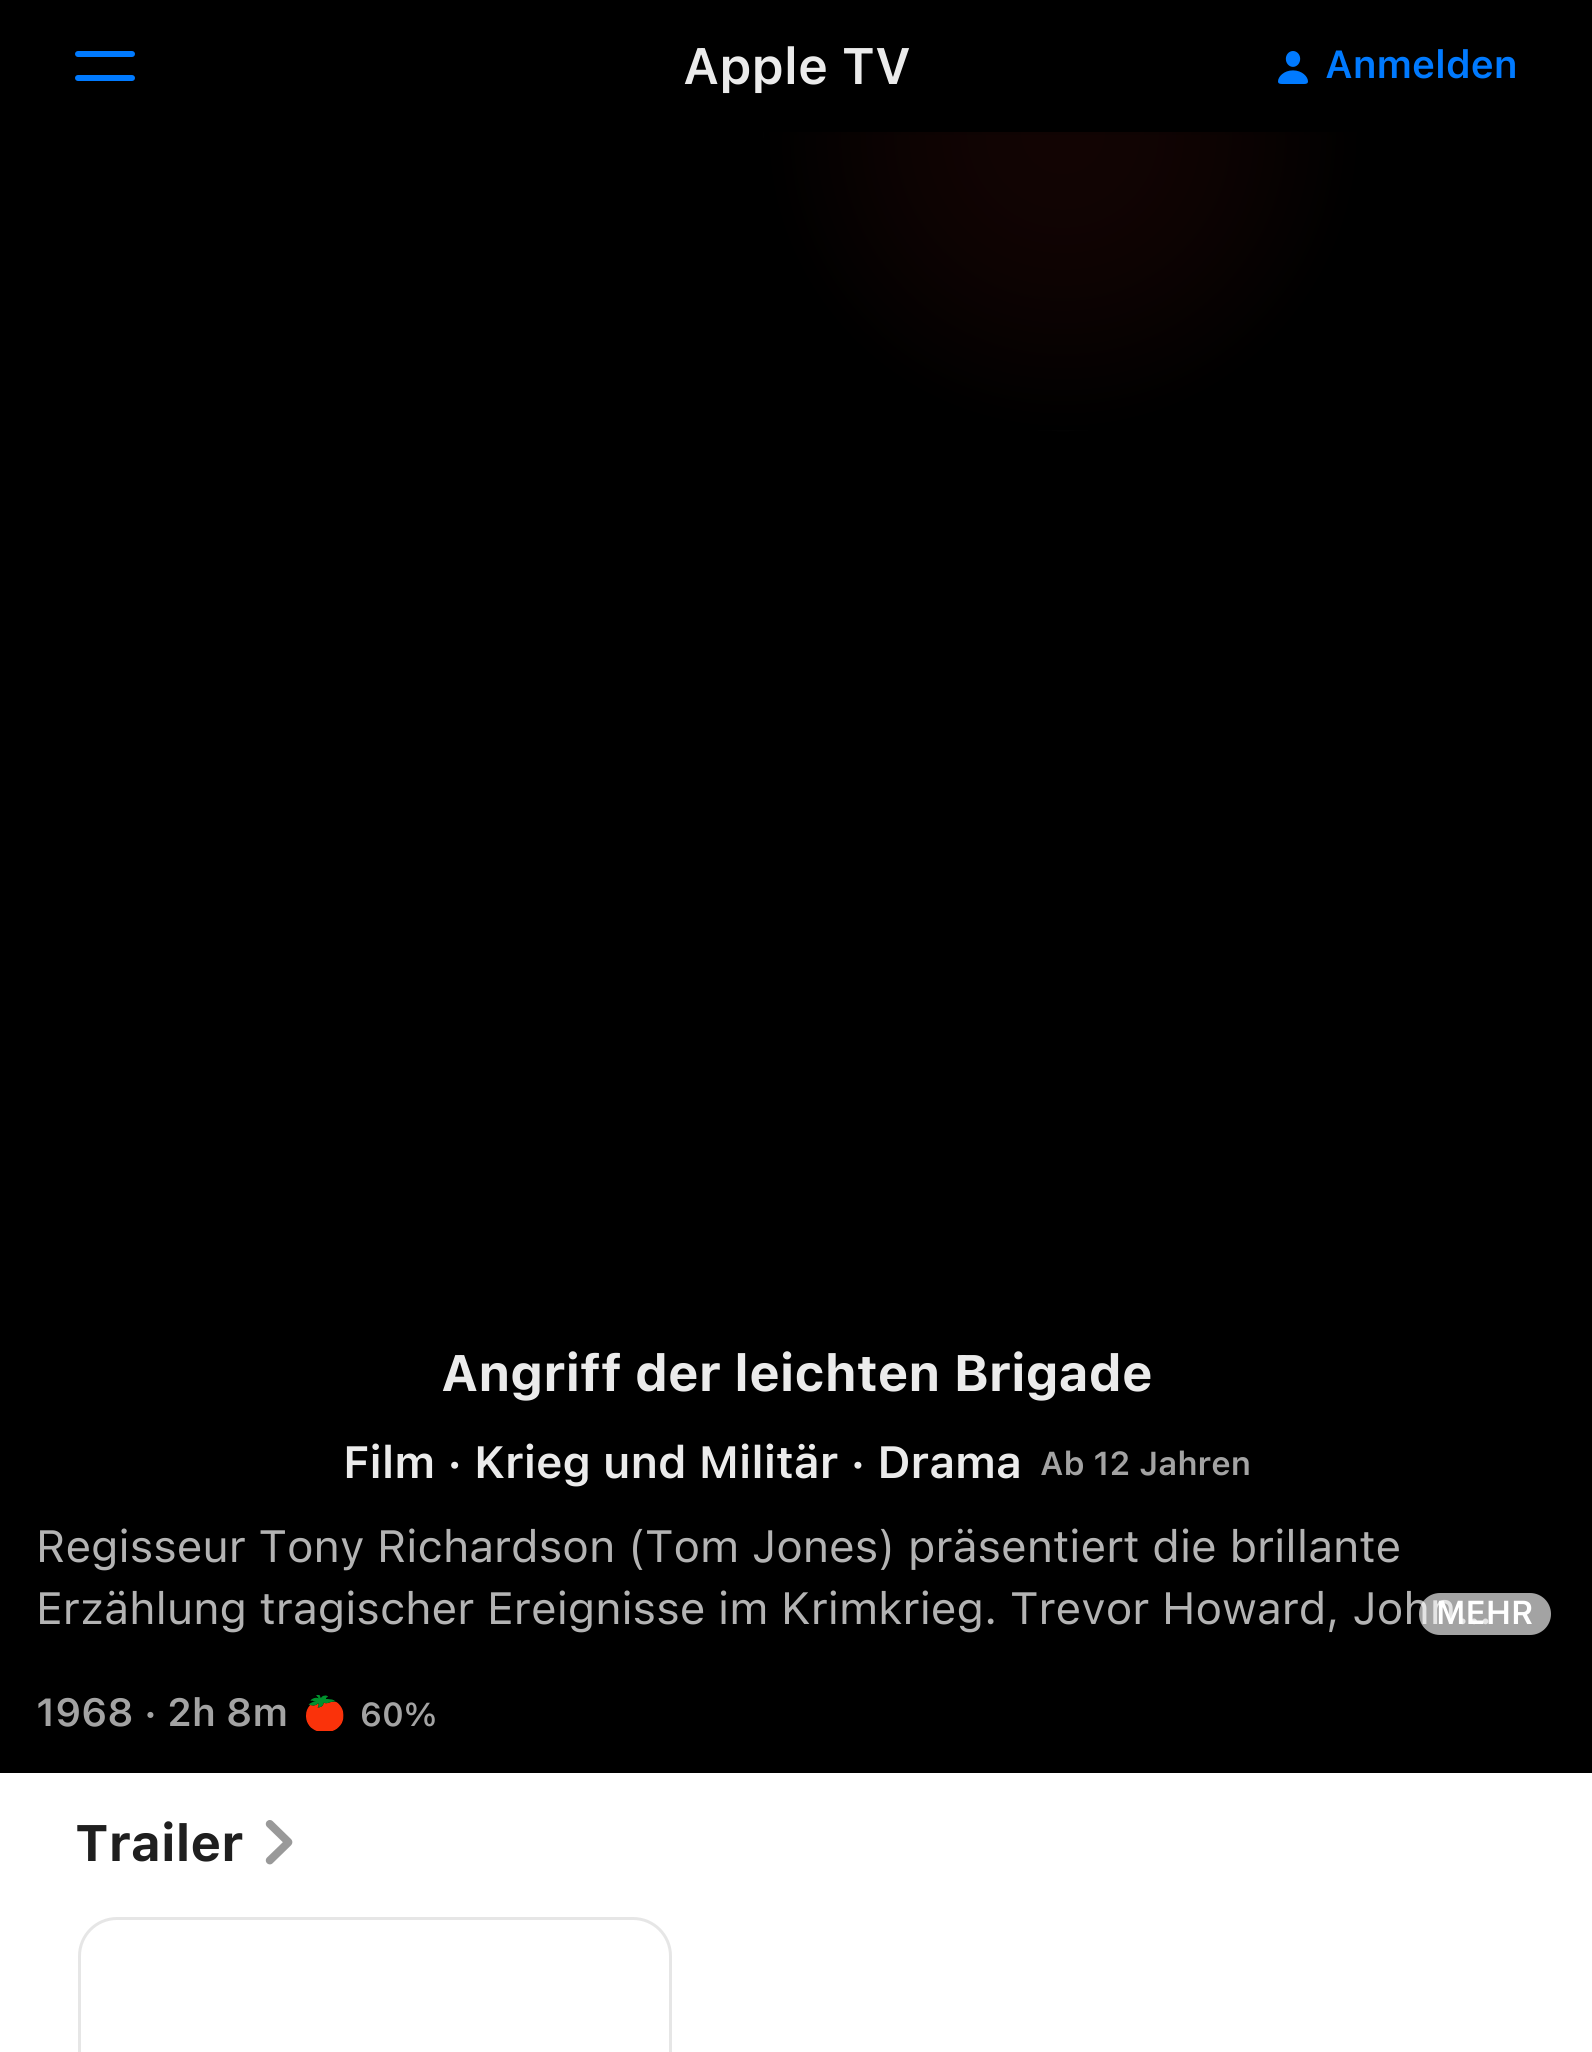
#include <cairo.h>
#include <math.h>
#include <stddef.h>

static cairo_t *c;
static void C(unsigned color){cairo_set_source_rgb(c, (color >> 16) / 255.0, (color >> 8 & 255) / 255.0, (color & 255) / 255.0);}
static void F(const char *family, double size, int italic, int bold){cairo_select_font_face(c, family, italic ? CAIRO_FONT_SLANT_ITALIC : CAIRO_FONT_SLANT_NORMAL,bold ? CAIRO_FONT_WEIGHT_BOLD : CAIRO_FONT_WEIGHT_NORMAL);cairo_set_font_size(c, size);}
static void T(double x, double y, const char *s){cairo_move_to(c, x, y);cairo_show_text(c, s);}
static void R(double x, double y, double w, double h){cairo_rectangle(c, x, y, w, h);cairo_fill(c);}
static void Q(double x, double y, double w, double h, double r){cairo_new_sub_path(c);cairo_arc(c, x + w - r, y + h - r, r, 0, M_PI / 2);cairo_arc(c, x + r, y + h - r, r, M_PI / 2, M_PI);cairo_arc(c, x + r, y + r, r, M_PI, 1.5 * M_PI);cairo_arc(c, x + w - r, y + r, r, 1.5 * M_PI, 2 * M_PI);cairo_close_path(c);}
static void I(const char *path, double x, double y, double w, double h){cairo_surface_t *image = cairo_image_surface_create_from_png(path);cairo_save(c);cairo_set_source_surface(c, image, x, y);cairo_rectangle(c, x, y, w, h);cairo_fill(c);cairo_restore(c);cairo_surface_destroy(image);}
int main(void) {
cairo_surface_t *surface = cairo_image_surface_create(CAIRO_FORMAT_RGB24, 1592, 2052);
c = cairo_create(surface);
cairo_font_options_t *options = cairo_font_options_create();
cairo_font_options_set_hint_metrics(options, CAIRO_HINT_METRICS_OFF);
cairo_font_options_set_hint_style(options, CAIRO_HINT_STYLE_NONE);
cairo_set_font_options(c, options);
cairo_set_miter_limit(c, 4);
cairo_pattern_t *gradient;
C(0xffffff);
cairo_paint(c);
C(0x000000);
R(0,0,1592,132);
C(0x007aff);
Q(75,51,60,6,3);
cairo_fill(c);
Q(75,75,60,6,3);
cairo_fill(c);
F("SF SemiBold",51,0,0);
C(0xebebeb);
T(683,84,"Apple TV");
I("1.png",1278,51,30,33);
F("SF SemiBold",39,0,0);
C(0x007aff);
T(1325,78,"Anmelden");
C(0x120403);
R(764,132,599,298);
cairo_save(c);
cairo_rectangle(c,0,132,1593,1641);
cairo_clip(c);
cairo_rectangle(c,1.5,133.5,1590,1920);
cairo_set_source_rgba(c,0,0,0,0.1);
cairo_set_line_width(c,3);
cairo_stroke(c);
cairo_restore(c);
gradient = cairo_pattern_create_radial(1063,132,0,1063,132,300);
cairo_pattern_add_color_stop_rgba(gradient,0,0,0,0,0);
cairo_pattern_add_color_stop_rgba(gradient,.19,0,0,0,.04);
cairo_pattern_add_color_stop_rgba(gradient,.36,0,0,0,.15);
cairo_pattern_add_color_stop_rgba(gradient,.51,0,0,0,.3);
cairo_pattern_add_color_stop_rgba(gradient,.53,0,0,0,.33);
cairo_pattern_add_color_stop_rgba(gradient,.65,0,0,0,.49);
cairo_pattern_add_color_stop_rgba(gradient,.77,0,0,0,.67);
cairo_pattern_add_color_stop_rgba(gradient,.89,0,0,0,.85);
cairo_pattern_add_color_stop_rgba(gradient,1,0,0,0,1);
cairo_set_source(c,gradient);
cairo_pattern_destroy(gradient);
R(0,132,1592,1641);
F("SF",51,0,1);
C(0xebebeb);
T(441,1391,"Angriff der leichten Brigade");
F("SF SemiBold",45,0,0);
T(343,1478,"Film · Krieg und Militär · Drama");
F("SF SemiBold",33,0,0);
C(0xa3a3a3);
T(1040,1475,"Ab 12 Jahren");
F("SF",45,0,0);
C(0xb3b3b3);
T(36,1562,"Regisseur Tony Richardson (Tom Jones) präsentiert die brillante");
T(36,1624,"Erzählung tragischer Ereignisse im Krimkrieg. Trevor Howard, John…");
cairo_set_source_rgba(c,1,1,1,0.64);
Q(1419,1593,132,42,21);
cairo_fill(c);
F("SF SemiBold",33,0,0);
C(0xffffff);
T(1436,1624,"MEHR");
F("SF SemiBold",39,0,0);
C(0xa3a3a3);
T(36,1726,"1968 · 2h 8m");
I("2.png",306,1695,38,36);
F("SF SemiBold",33,0,0);
T(360,1726,"60%");
F("SF",51,0,1);
C(0x1f1f1f);
T(75,1861,"Trailer");
I("3.png",265,1820,28,45);
Q(79.5,1918.5,591,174,37.5);
C(0xe6e6e6);
cairo_set_line_width(c,3);
cairo_stroke(c);
cairo_surface_write_to_png(surface, "o.png");
cairo_font_options_destroy(options);
cairo_destroy(c);
cairo_surface_destroy(surface);
return 0;
}
